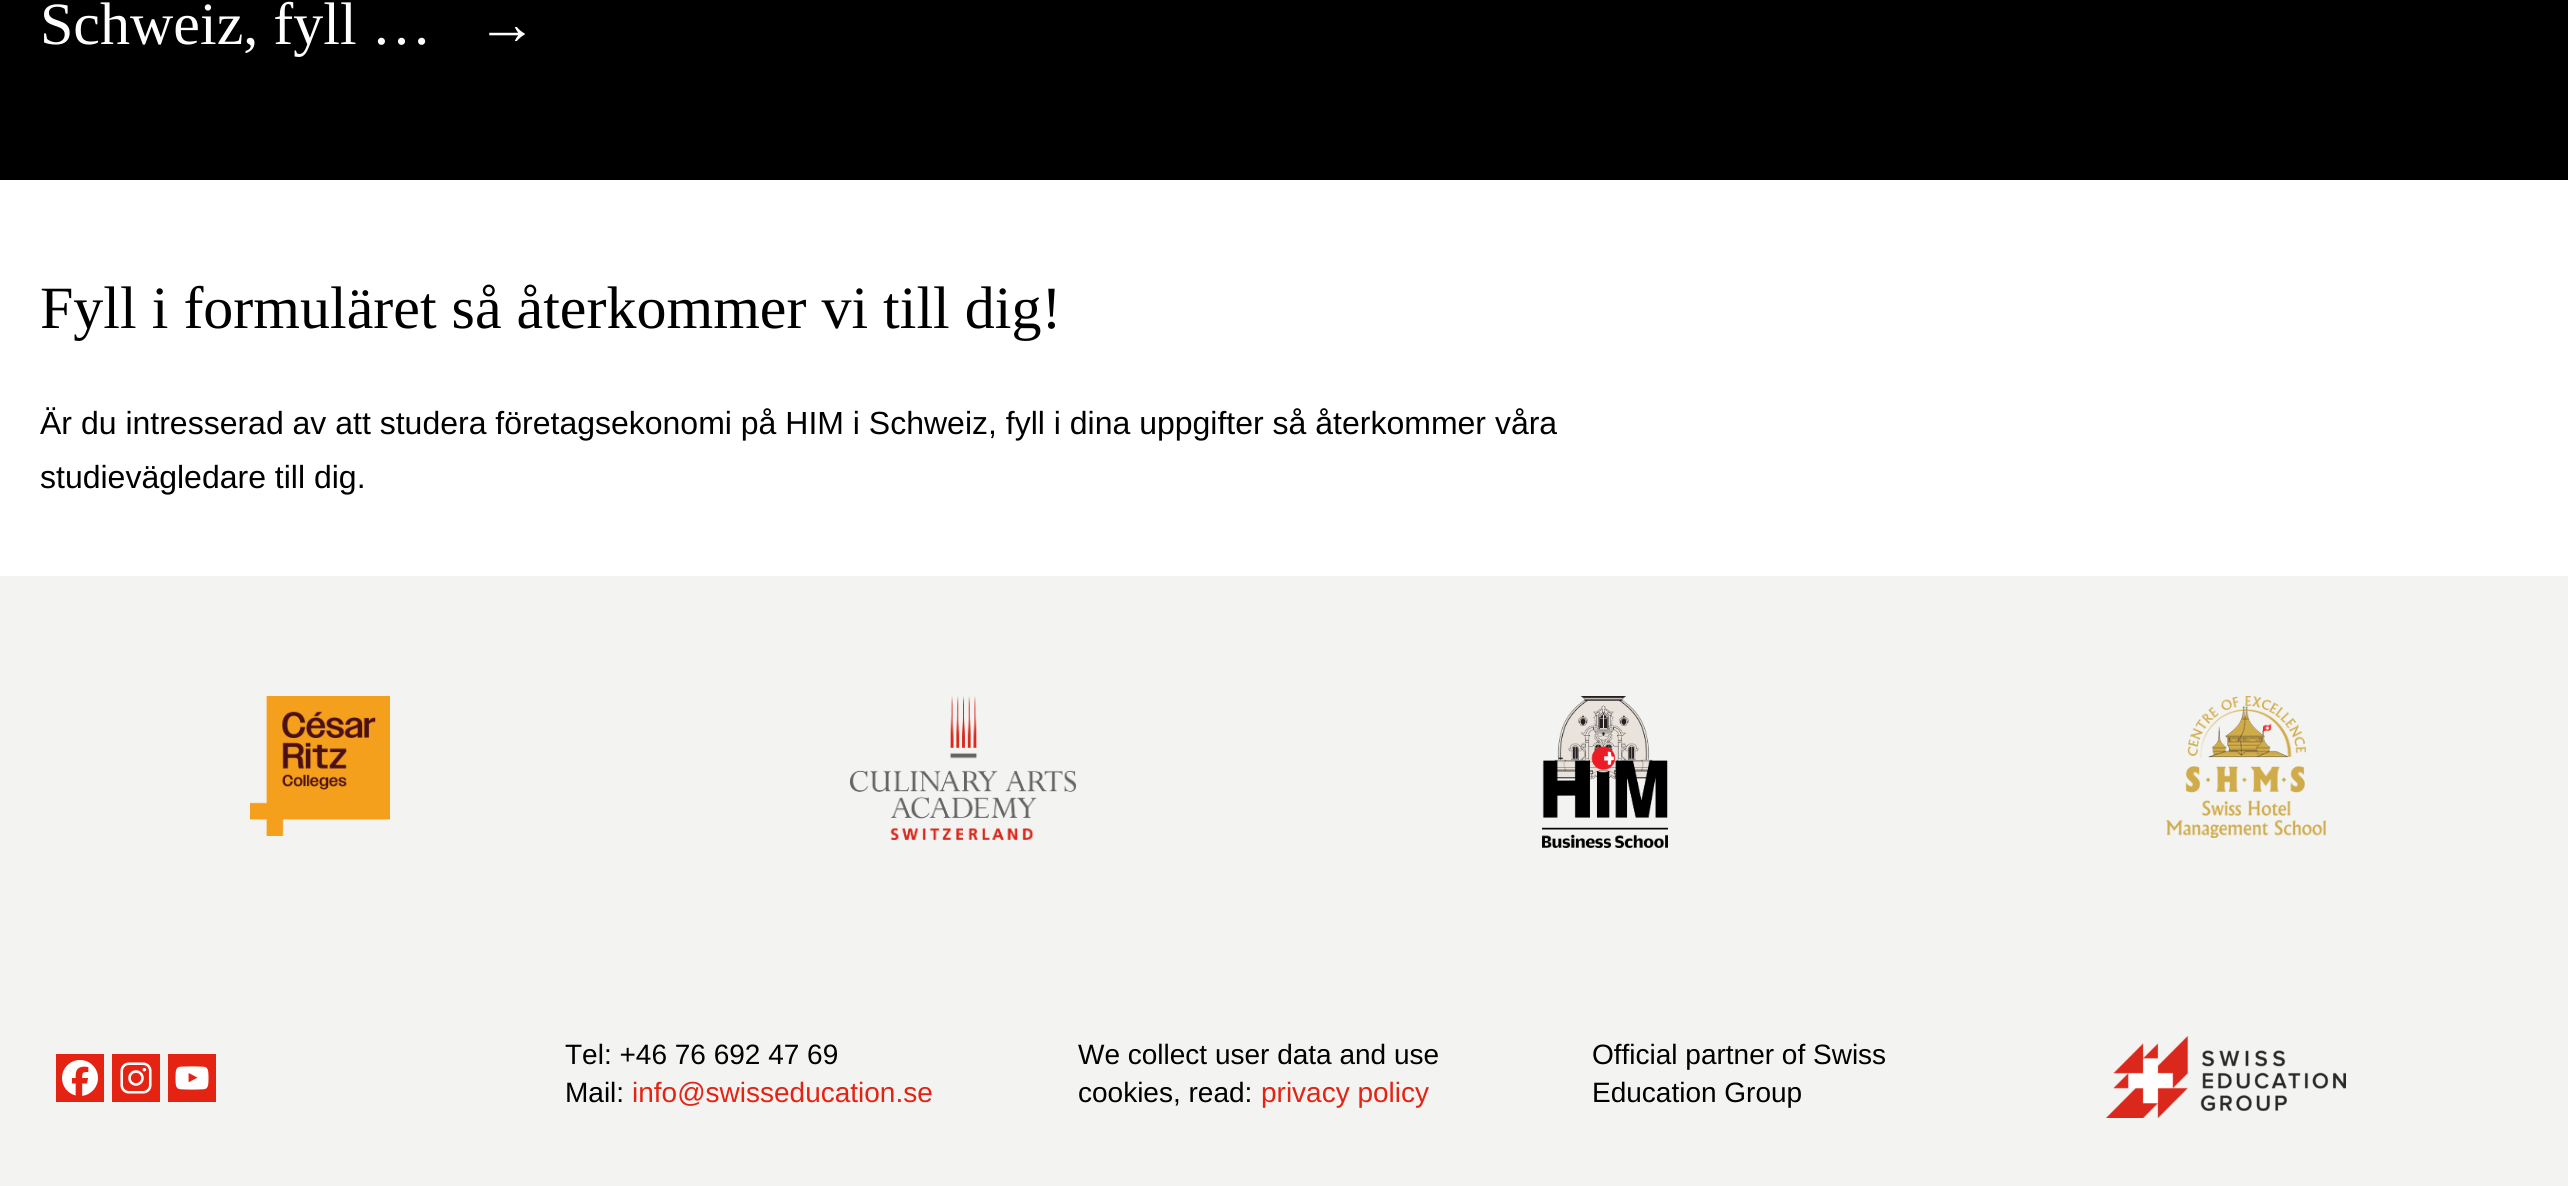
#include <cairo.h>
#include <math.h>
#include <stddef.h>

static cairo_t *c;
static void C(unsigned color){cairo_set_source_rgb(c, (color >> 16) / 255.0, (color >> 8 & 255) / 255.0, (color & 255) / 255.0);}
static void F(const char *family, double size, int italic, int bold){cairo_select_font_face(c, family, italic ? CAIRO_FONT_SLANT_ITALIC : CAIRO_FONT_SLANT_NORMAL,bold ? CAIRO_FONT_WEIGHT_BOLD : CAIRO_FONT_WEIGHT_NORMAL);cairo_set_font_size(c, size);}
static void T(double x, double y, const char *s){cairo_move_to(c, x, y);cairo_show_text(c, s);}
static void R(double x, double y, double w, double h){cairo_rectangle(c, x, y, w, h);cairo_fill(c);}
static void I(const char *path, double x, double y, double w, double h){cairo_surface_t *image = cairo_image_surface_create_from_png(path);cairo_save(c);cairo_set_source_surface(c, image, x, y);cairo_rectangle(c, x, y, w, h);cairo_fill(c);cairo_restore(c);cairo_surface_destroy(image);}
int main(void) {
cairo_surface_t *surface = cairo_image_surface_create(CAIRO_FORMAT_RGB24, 2568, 1186);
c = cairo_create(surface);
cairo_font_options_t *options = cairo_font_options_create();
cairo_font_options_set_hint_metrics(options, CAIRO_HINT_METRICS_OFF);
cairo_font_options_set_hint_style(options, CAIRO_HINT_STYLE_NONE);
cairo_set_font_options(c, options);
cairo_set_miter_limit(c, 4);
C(0xffffff);
cairo_paint(c);
C(0x000000);
R(0,0,2568,180);
F("Liberation Serif",60,0,0);
C(0xffffff);
T(40,44,"Schweiz, fyll …");
T(477,44,"→");
C(0x000000);
T(40,328,"Fyll i formuläret så återkommer vi till dig!");
F("Liberation Sans",32,0,0);
T(40,434,"Är du intresserad av att studera företagsekonomi på HIM i Schweiz, fyll i dina uppgifter så återkommer våra");
T(40,488,"studievägledare till dig.");
C(0xf3f3f2);
R(0,576,2568,610);
I("1.png",250,696,140,140);
I("2.png",850,696,226,144);
I("3.png",1542,696,126,152);
I("4.png",2166,696,160,142);
C(0xe42313);
R(56,1054,48,48);
I("5.png",62,1060,36,36);
R(112,1054,48,48);
I("6.png",120,1062,32,32);
R(168,1054,48,48);
I("7.png",175,1066,34,24);
F("Liberation Sans",28,0,0);
C(0x000000);
T(565,1064,"Tel: +46 76 692 47 69");
T(565,1102,"Mail:");
C(0xe42313);
T(632,1102,"info@swisseducation.se");
C(0x000000);
T(1078,1064,"We collect user data and use");
T(1078,1102,"cookies, read:");
C(0xe42313);
T(1261,1102,"privacy policy");
C(0x000000);
T(1592,1064,"Official partner of Swiss");
T(1592,1102,"Education Group");
I("8.png",2106,1036,240,82);
cairo_surface_write_to_png(surface, "o.png");
cairo_font_options_destroy(options);
cairo_destroy(c);
cairo_surface_destroy(surface);
return 0;
}
